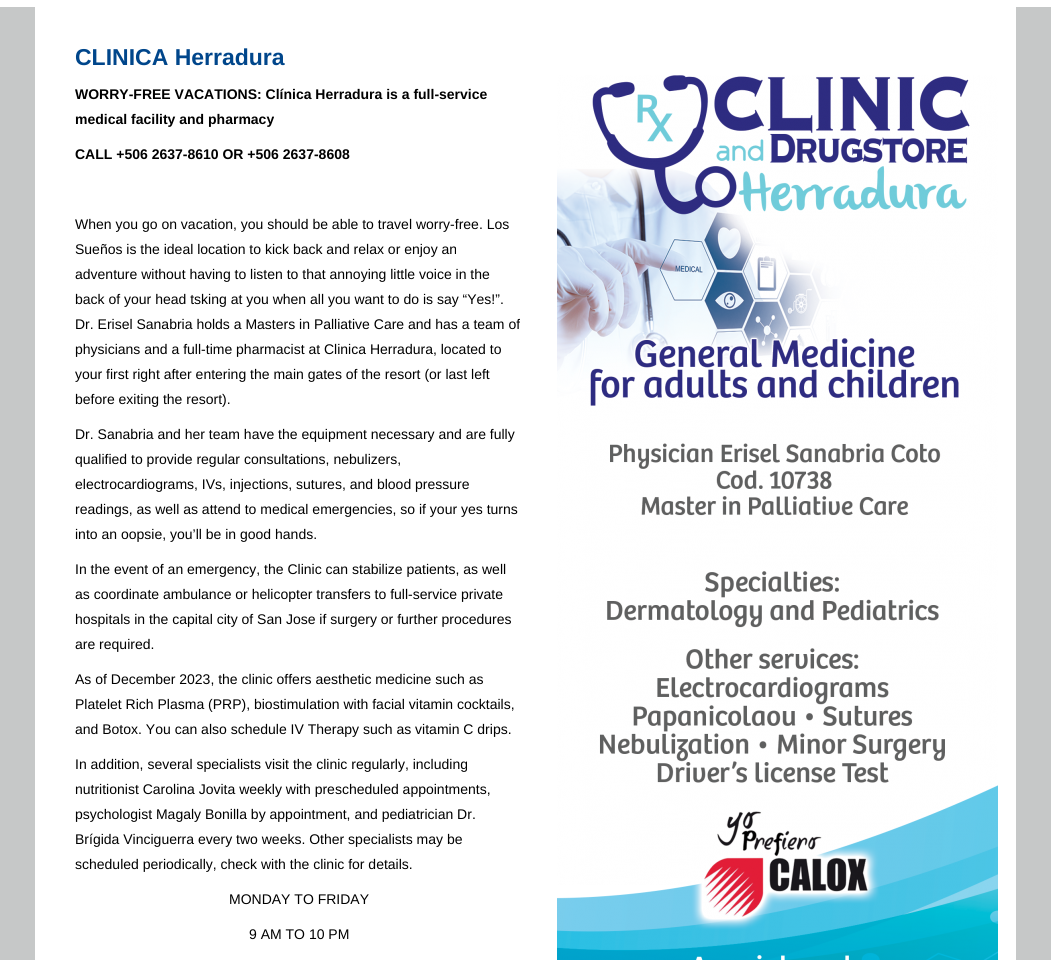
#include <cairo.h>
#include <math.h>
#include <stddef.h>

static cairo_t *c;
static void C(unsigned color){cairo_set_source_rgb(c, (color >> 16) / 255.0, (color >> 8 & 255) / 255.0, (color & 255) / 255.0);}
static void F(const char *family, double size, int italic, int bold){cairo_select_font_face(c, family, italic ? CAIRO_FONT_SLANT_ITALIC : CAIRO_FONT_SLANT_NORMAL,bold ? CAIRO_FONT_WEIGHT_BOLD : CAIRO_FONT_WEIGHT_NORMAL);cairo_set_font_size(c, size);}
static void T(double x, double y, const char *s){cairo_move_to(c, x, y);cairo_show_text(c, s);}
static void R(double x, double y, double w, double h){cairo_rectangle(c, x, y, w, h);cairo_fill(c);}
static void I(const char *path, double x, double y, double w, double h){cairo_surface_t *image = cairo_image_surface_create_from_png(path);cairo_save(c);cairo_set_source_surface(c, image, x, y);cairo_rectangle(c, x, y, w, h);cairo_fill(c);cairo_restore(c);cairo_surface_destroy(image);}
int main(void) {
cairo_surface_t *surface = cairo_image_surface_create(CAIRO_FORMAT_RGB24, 1051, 960);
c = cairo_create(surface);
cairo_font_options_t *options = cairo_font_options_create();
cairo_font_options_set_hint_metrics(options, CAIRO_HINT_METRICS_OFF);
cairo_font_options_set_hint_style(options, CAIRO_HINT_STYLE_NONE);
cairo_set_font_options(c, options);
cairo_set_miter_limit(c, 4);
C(0xffffff);
cairo_paint(c);
C(0xc6c8c8);
R(0,7,1051,953);
C(0xffffff);
R(35,7,981,953);
F("Liberation Sans",23,0,1);
C(0x00468b);
T(75,65,"CLINICA Herradura");
F("Liberation Sans",14,0,1);
C(0x000000);
T(75,99,"WORRY-FREE VACATIONS: Clínica Herradura is a full-service");
T(75,124,"medical facility and pharmacy");
T(75,159,"CALL +506 2637-8610 OR +506 2637-8608");
F("Liberation Sans",14,0,0);
T(75,229,"When you go on vacation, you should be able to travel worry-free. Los");
T(75,254,"Sueños is the ideal location to kick back and relax or enjoy an");
T(75,279,"adventure without having to listen to that annoying little voice in the");
T(75,304,"back of your head tsking at you when all you want to do is say “Yes!”.");
T(75,329,"Dr. Erisel Sanabria holds a Masters in Palliative Care and has a team of");
T(75,354,"physicians and a full-time pharmacist at Clinica Herradura, located to");
T(75,379,"your first right after entering the main gates of the resort (or last left");
T(75,404,"before exiting the resort).");
T(75,439,"Dr. Sanabria and her team have the equipment necessary and are fully");
T(75,464,"qualified to provide regular consultations, nebulizers,");
T(75,489,"electrocardiograms, IVs, injections, sutures, and blood pressure");
T(75,514,"readings, as well as attend to medical emergencies, so if your yes turns");
T(75,539,"into an oopsie, you’ll be in good hands.");
T(75,574,"In the event of an emergency, the Clinic can stabilize patients, as well");
T(75,599,"as coordinate ambulance or helicopter transfers to full-service private");
T(75,624,"hospitals in the capital city of San Jose if surgery or further procedures");
T(75,649,"are required.");
T(75,684,"As of December 2023, the clinic offers aesthetic medicine such as");
T(75,709,"Platelet Rich Plasma (PRP), biostimulation with facial vitamin cocktails,");
T(75,734,"and Botox. You can also schedule IV Therapy such as vitamin C drips.");
T(75,769,"In addition, several specialists visit the clinic regularly, including");
T(75,794,"nutritionist Carolina Jovita weekly with prescheduled appointments,");
T(75,819,"psychologist Magaly Bonilla by appointment, and pediatrician Dr.");
T(75,844,"Brígida Vinciguerra every two weeks. Other specialists may be");
T(75,869,"scheduled periodically, check with the clinic for details.");
T(229,904,"MONDAY TO FRIDAY");
T(249,939,"9 AM TO 10 PM");
I("1.png",557,75,441,885);
cairo_surface_write_to_png(surface, "o.png");
cairo_font_options_destroy(options);
cairo_destroy(c);
cairo_surface_destroy(surface);
return 0;
}
